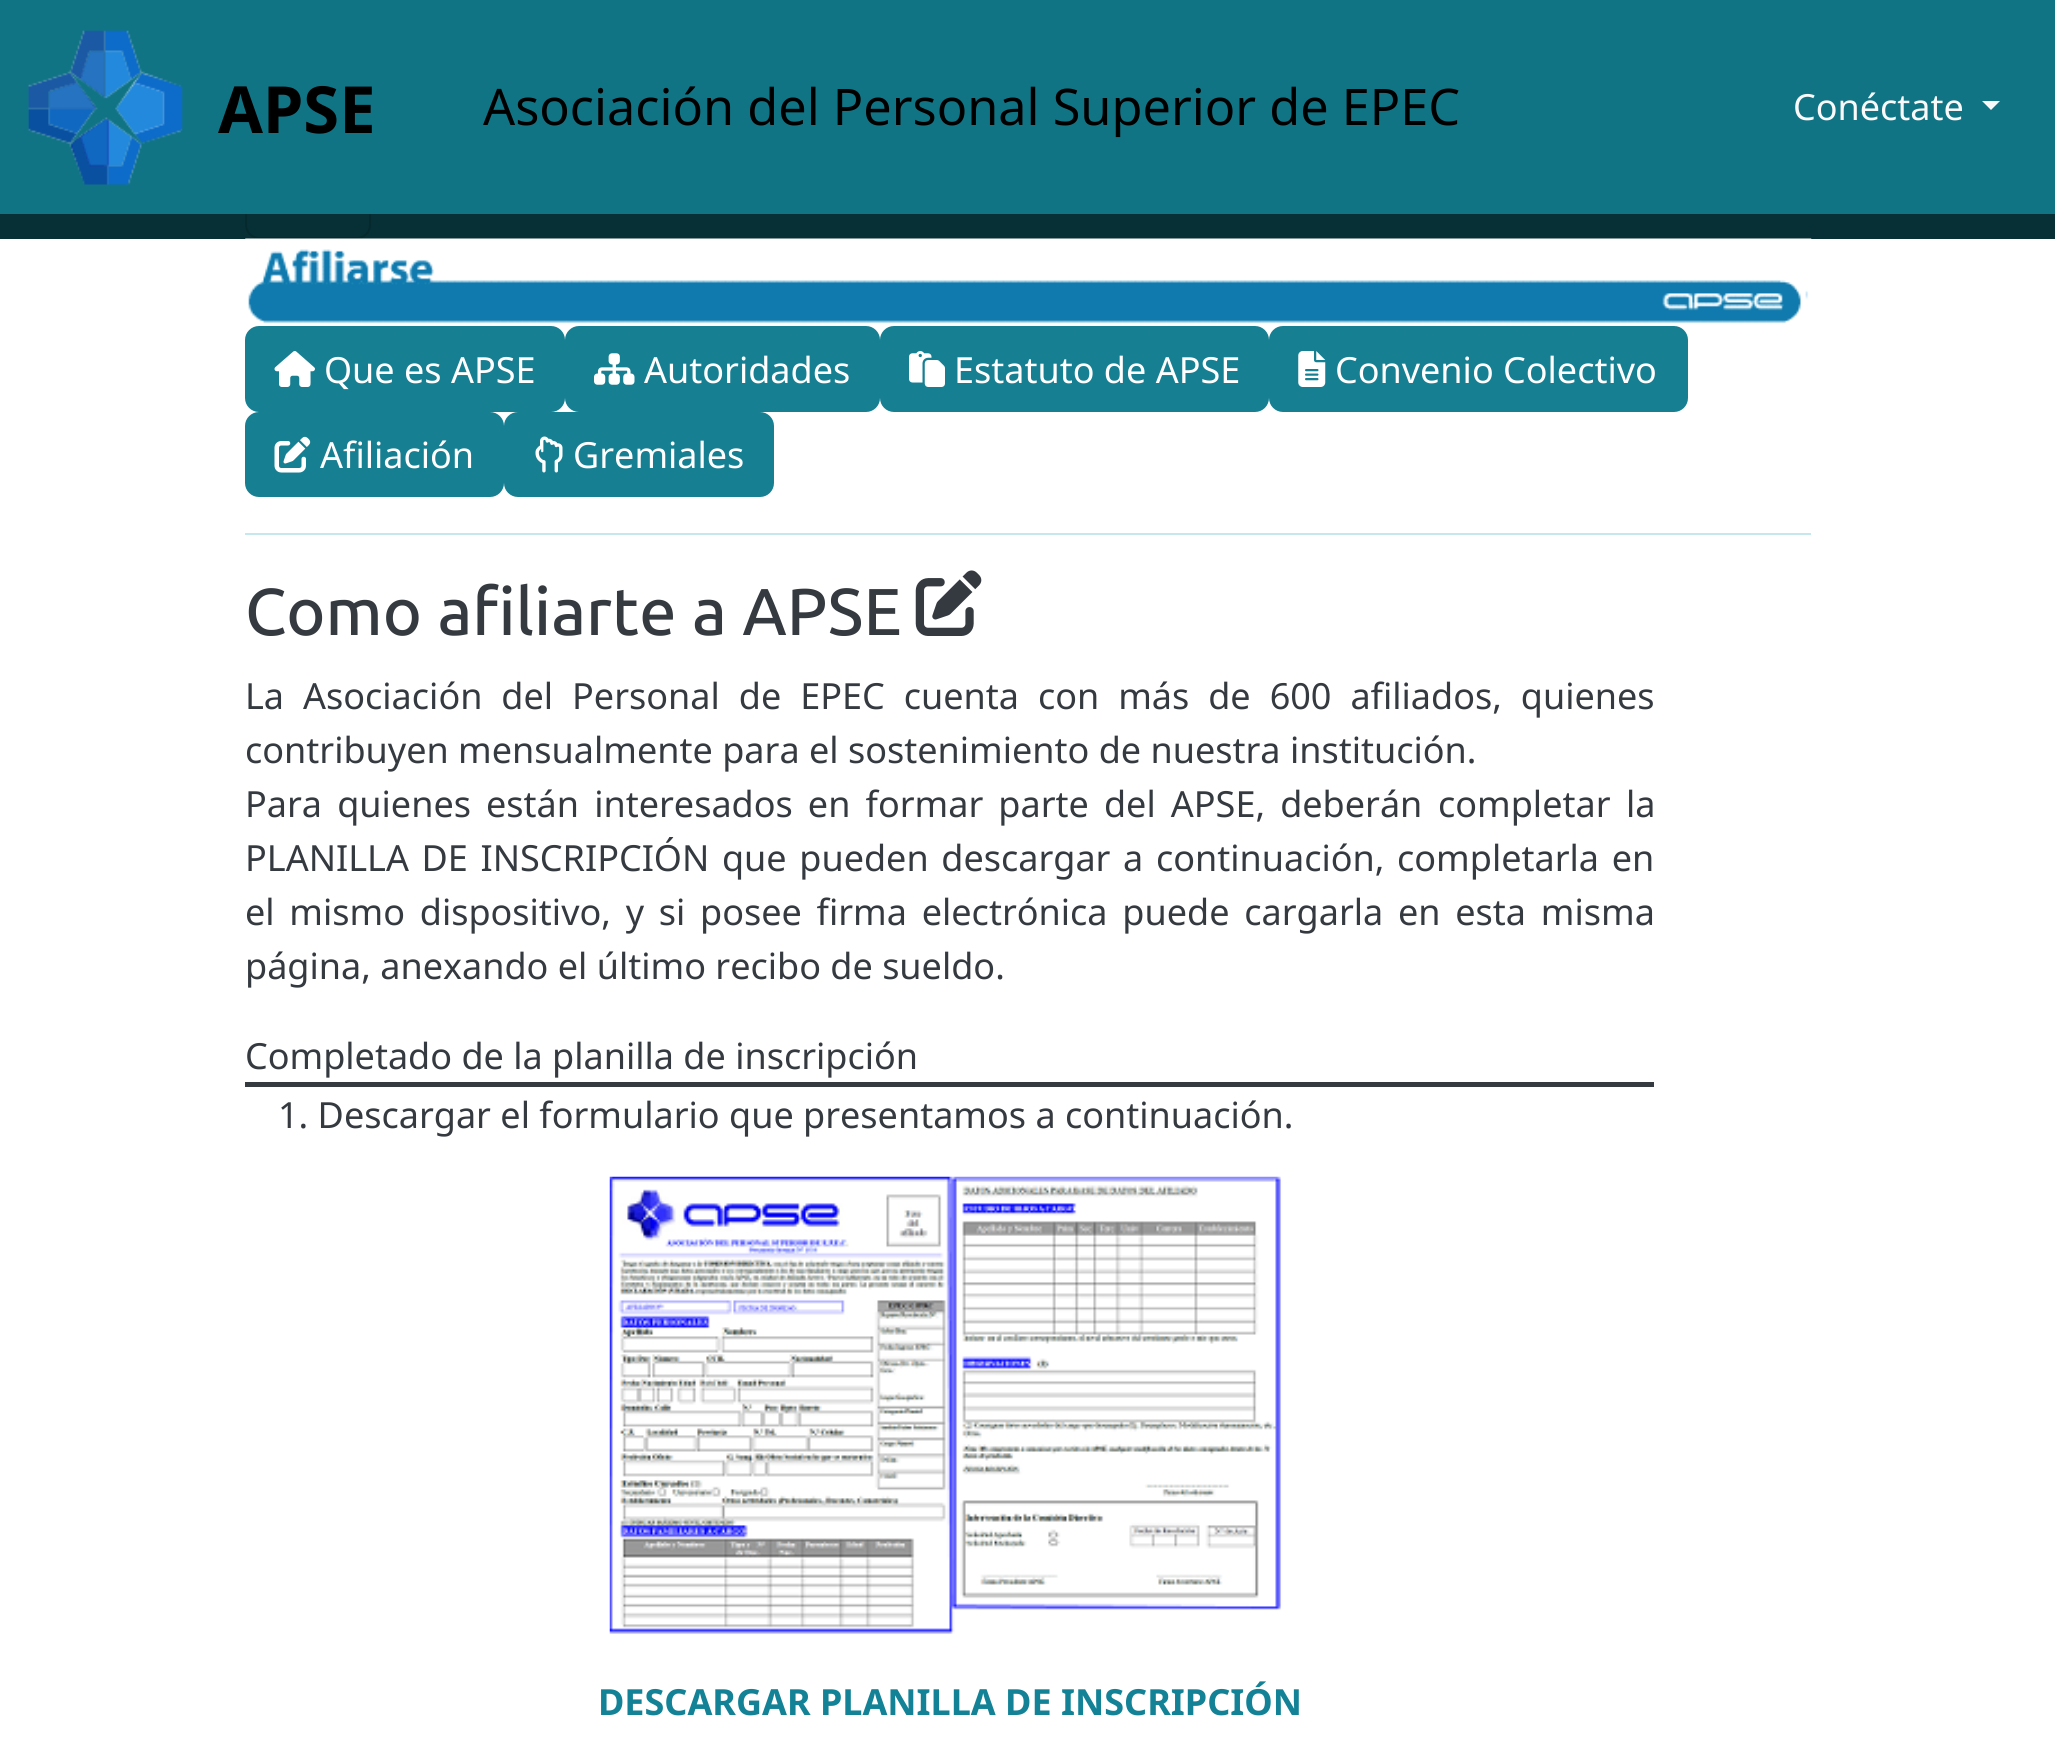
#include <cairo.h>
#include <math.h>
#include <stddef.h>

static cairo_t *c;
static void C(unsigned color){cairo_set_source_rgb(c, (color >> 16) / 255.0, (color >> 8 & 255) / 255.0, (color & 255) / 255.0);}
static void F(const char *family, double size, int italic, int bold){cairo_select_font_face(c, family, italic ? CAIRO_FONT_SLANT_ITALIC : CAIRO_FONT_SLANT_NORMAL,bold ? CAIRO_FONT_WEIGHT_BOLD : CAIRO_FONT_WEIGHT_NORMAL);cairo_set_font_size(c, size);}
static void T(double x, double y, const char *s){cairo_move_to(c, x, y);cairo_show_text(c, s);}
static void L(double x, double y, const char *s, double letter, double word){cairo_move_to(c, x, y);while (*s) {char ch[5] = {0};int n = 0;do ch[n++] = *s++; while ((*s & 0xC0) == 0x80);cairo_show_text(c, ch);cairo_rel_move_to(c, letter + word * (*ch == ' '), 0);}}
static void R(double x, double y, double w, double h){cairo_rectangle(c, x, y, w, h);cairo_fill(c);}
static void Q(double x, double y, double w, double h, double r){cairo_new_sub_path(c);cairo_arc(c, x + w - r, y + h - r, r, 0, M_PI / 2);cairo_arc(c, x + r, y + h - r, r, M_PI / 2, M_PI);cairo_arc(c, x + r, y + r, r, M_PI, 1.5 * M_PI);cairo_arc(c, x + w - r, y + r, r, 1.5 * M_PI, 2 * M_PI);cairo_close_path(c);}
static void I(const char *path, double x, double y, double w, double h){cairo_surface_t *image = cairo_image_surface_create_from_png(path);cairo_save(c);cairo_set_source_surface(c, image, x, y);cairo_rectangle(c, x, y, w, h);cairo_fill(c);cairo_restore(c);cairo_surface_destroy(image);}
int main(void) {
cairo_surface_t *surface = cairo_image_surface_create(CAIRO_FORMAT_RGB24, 2055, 1757);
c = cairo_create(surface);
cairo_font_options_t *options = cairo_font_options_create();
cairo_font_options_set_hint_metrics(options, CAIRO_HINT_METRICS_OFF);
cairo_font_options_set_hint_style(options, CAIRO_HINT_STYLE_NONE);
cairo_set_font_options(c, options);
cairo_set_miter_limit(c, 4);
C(0xffffff);
cairo_paint(c);
C(0x063035);
R(0,214,2055,25);
Q(246,150,124,88,13);
C(0x05292d);
cairo_stroke(c);
C(0x117485);
R(0,0,2055,214);
I("1.png",28,30,155,155);
F("Noto Sans",65,0,1);
C(0x000000);
T(218,133,"APSE");
F("Noto Sans",50.4,0,0);
T(483,125,"Asociación del Personal Superior de EPEC");
F("Noto Sans",36,0,0);
C(0xf9f9f9);
T(1793,120,"Conéctate");
cairo_new_path(c);
cairo_move_to(c,1982,101);
cairo_line_to(c,2000,101);
cairo_line_to(c,1991,110);
cairo_close_path(c);
cairo_fill(c);
I("2.png",245,238,1567,86);
C(0x177f92);
Q(246,327,318,84,13);
cairo_fill_preserve(c);
cairo_stroke(c);
I("3.png",274,351,41,36);
C(0xffffff);
T(324,383,"Que es APSE");
C(0x177f92);
Q(566,327,313,84,13);
cairo_fill_preserve(c);
cairo_stroke(c);
I("4.png",594,353,41,32);
C(0xffffff);
T(644,383,"Autoridades");
C(0x177f92);
Q(881,327,387,84,13);
cairo_fill_preserve(c);
cairo_stroke(c);
I("5.png",909,351,36,36);
C(0xffffff);
T(954,383,"Estatuto de APSE");
C(0x177f92);
Q(1270,327,417,84,13);
cairo_fill_preserve(c);
cairo_stroke(c);
I("6.png",1298,351,28,36);
C(0xffffff);
T(1335,383,"Convenio Colectivo");
C(0x177f92);
Q(246,413,257,83,13);
cairo_fill_preserve(c);
cairo_stroke(c);
I("7.png",274,436,37,37);
C(0xffffff);
T(320,468,"Afiliación");
C(0x177f92);
Q(505,413,268,83,13);
cairo_fill_preserve(c);
cairo_stroke(c);
I("8.png",535,436,28,37);
C(0xffffff);
T(573,468,"Gremiales");
C(0xc5e8ee);
R(245,533,1566,2);
F("Ubuntu Medium",66.25,0,0);
C(0x343a40);
T(245,635,"Como afiliarte a APSE");
I("9.png",915,570,67,66);
F("Noto Sans",36,0,0);
L(245,709,"La Asociación del Personal de EPEC cuenta con más de 600 afiliados, quienes",0,9.6);
T(245,763,"contribuyen mensualmente para el sostenimiento de nuestra institución.");
L(245,817,"Para quienes están interesados en formar parte del APSE, deberán",0,5.75);
L(1438,817,"completar la",0,6);
L(245,871,"PLANILLA DE INSCRIPCIÓN que pueden descargar a continuación, completarla en",0,3.25);
L(245,925,"el mismo dispositivo, y si posee firma electrónica puede cargarla en esta misma",0,5.4);
T(245,979,"página, anexando el último recibo de sueldo.");
R(245,1082,1409,5);
T(245,1069,"Completado de la planilla de inscripción");
T(278,1128,"1. Descargar el formulario que presentamos a continuación.");
I("10.png",609,1176,672,458);
F("Noto Sans",36,0,1);
C(0x138296);
T(598,1715,"DESCARGAR PLANILLA DE INSCRIPCIÓN");
cairo_surface_write_to_png(surface, "o.png");
cairo_font_options_destroy(options);
cairo_destroy(c);
cairo_surface_destroy(surface);
return 0;
}
